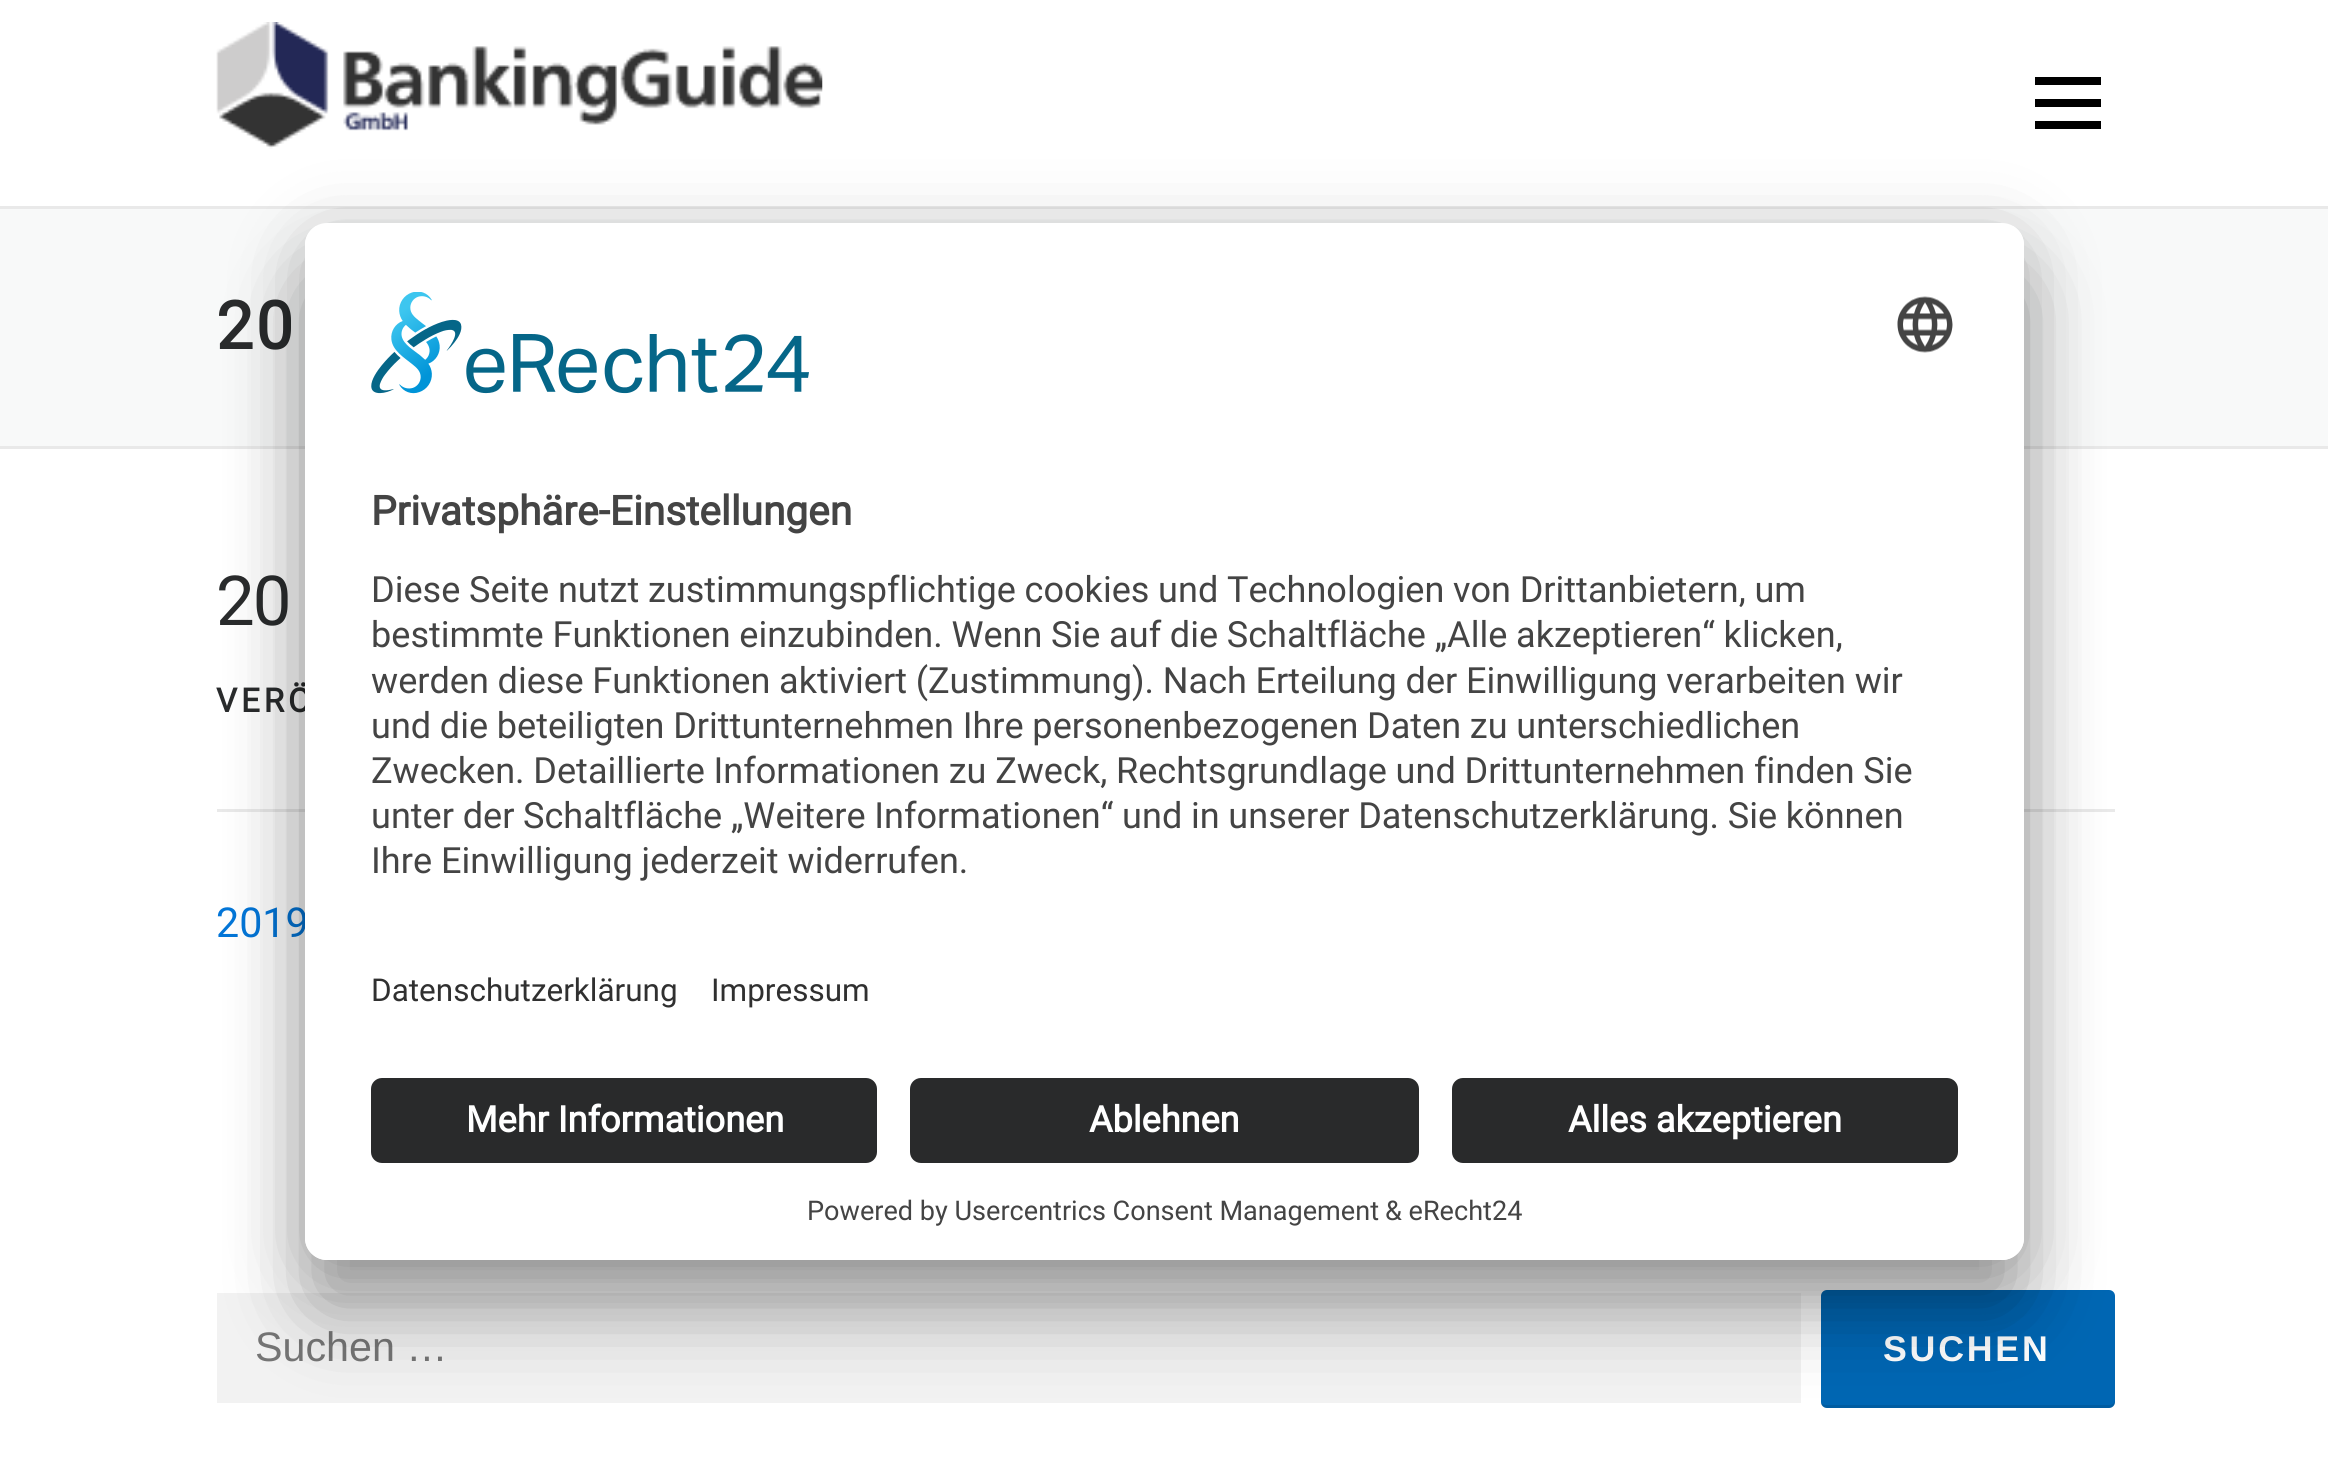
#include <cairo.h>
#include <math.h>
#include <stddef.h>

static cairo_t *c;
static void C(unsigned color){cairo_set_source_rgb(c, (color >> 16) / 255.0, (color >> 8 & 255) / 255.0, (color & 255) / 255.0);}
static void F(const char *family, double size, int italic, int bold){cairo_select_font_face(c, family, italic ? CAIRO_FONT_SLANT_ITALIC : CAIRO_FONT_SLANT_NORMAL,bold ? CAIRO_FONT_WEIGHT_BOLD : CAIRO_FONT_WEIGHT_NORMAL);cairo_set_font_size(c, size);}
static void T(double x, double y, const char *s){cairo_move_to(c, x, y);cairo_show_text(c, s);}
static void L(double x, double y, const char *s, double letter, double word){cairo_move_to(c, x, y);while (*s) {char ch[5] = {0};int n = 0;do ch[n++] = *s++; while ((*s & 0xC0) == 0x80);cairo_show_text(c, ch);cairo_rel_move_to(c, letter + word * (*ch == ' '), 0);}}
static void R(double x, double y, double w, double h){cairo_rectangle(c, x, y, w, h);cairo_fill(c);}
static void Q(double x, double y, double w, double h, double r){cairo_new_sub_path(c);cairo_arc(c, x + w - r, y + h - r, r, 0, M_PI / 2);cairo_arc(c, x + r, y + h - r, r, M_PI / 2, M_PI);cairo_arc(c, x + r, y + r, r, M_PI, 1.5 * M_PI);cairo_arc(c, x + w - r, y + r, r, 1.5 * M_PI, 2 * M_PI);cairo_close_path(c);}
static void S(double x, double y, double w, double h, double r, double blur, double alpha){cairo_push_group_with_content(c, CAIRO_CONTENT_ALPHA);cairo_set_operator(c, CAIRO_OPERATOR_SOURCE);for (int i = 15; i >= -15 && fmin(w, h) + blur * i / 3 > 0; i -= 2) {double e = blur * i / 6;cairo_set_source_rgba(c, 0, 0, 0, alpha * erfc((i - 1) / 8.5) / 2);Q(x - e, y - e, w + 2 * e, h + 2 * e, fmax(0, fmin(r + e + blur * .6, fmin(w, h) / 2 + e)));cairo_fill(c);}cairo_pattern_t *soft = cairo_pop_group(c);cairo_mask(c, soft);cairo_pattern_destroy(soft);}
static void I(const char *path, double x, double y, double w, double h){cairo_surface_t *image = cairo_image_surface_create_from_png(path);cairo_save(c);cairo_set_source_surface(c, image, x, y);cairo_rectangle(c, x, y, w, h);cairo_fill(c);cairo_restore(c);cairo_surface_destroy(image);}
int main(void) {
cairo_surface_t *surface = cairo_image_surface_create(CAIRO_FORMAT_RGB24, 2328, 1482);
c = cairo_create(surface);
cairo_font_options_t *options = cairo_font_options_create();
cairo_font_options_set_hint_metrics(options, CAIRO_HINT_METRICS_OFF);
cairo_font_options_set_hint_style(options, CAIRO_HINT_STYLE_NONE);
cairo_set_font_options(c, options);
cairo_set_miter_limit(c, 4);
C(0xffffff);
cairo_paint(c);
I("1.png",216,22,607,127);
C(0x000000);
R(2035,99,66,8);
R(2035,77,66,8);
R(2035,121,66,8);
C(0xf8f9f9);
R(0,209,2328,237);
C(0xe9e9e9);
R(0,206,2328,3);
R(0,446,2328,3);
F("Roboto",66,0,1);
C(0x292b2c);
L(216,349,"20",2.75,0);
F("Roboto",69,0,0);
L(216,625,"20",-2,0);
C(0xe9e9e9);
R(217,809,1898,3);
F("Roboto",33,0,1);
C(0x292b2c);
L(216,712,"VERÖ",4,0);
F("Roboto",41.25,0,0);
C(0x0275d8);
T(216,937,"2019");
C(0xf2f2f2);
R(217,1293,1584,110);
F("Liberation Sans",41.25,0,0);
C(0x757575);
T(255,1361,"Suchen …");
C(0x0066b3);
Q(1821,1290,294,118,6);
cairo_fill(c);
cairo_set_source_rgba(c,0,0,0,0.1);
cairo_new_path(c);
cairo_move_to(c,1821,1403);
cairo_curve_to(c,1821,1406,1824,1408,1827,1408);
cairo_line_to(c,2109,1408);
cairo_curve_to(c,2112,1408,2115,1405,2115,1402);
cairo_line_to(c,2115,1400);
cairo_curve_to(c,2115,1403,2112,1405,2109,1405);
cairo_line_to(c,1826,1405);
cairo_curve_to(c,1824,1405,1822,1404,1821,1403);
cairo_close_path(c);
cairo_fill(c);
F("Liberation Sans",35.75,0,1);
C(0xffffff);
L(1883,1361,"SUCHEN",2.75,0);
C(0x000000);
S(305,278,1719,1037,22,38.5,.3);
S(305,237,1719,1036,22,36,.22);
C(0xffffff);
Q(305,223,1719,1037,22);
cairo_fill(c);
cairo_save(c);
Q(305,223,1719,1037,22);
cairo_clip(c);
cairo_new_path(c);
cairo_move_to(c,327,223);
cairo_line_to(c,2002,223);
cairo_curve_to(c,2014,223,2024,233,2024,245);
cairo_line_to(c,2024,1056);
cairo_line_to(c,305,1056);
cairo_line_to(c,305,245);
cairo_curve_to(c,305,233,315,223,327,223);
cairo_close_path(c);
cairo_clip(c);
R(305,226,1719,830);
cairo_restore(c);
I("2.png",371,292,438,102);
I("3.png",1897,296,56,57);
F("Roboto",40.6,0,1);
C(0x444444);
T(371,525,"Privatsphäre-Einstellungen");
F("Roboto",36.1,0,0);
L(371,602,"Diese Seite nutzt zustimmungspflichtige cookies und Technologien von Drittanbietern, um",0,-.25);
L(371,647,"bestimmte Funktionen einzubinden. Wenn Sie auf die Schaltfläche „Alle akzeptieren“ klicken,",0,-.25);
L(371,693,"werden diese Funktionen aktiviert (Zustimmung). Nach Erteilung der Einwilligung verarbeiten wir",0,-.25);
L(371,738,"und die beteiligten Drittunternehmen Ihre personenbezogenen Daten zu unterschiedlichen",0,-.25);
L(371,783,"Zwecken. Detaillierte Informationen zu Zweck, Rechtsgrundlage und Drittunternehmen finden Sie",0,-.25);
L(371,828,"unter der Schaltfläche „Weitere Informationen“ und in unserer Datenschutzerklärung. Sie können",0,-.25);
T(371,873,"Ihre Einwilligung jederzeit widerrufen.");
F("Roboto",31.5,0,0);
C(0x303030);
T(371,1001,"Datenschutzerklärung");
T(711,1001,"Impressum");
C(0xffffff);
cairo_new_path(c);
cairo_move_to(c,305,1056);
cairo_line_to(c,2024,1056);
cairo_line_to(c,2024,1238);
cairo_curve_to(c,2024,1250,2014,1260,2002,1260);
cairo_line_to(c,327,1260);
cairo_curve_to(c,315,1260,305,1250,305,1238);
cairo_close_path(c);
cairo_fill(c);
C(0x292a2b);
Q(371,1078,506,85,11);
cairo_fill(c);
F("Roboto",36.1,0,1);
C(0xffffff);
T(466,1132,"Mehr Informationen");
C(0x292a2b);
Q(910,1078,509,85,11);
cairo_fill(c);
C(0xffffff);
T(1089,1132,"Ablehnen");
C(0x292a2b);
Q(1452,1078,506,85,11);
cairo_fill(c);
C(0xffffff);
T(1568,1132,"Alles akzeptieren");
F("Roboto",27.1,0,0);
C(0x444444);
T(807,1220,"Powered by Usercentrics Consent Management");
T(1385,1220,"& eRecht24");
cairo_surface_write_to_png(surface, "o.png");
cairo_font_options_destroy(options);
cairo_destroy(c);
cairo_surface_destroy(surface);
return 0;
}
